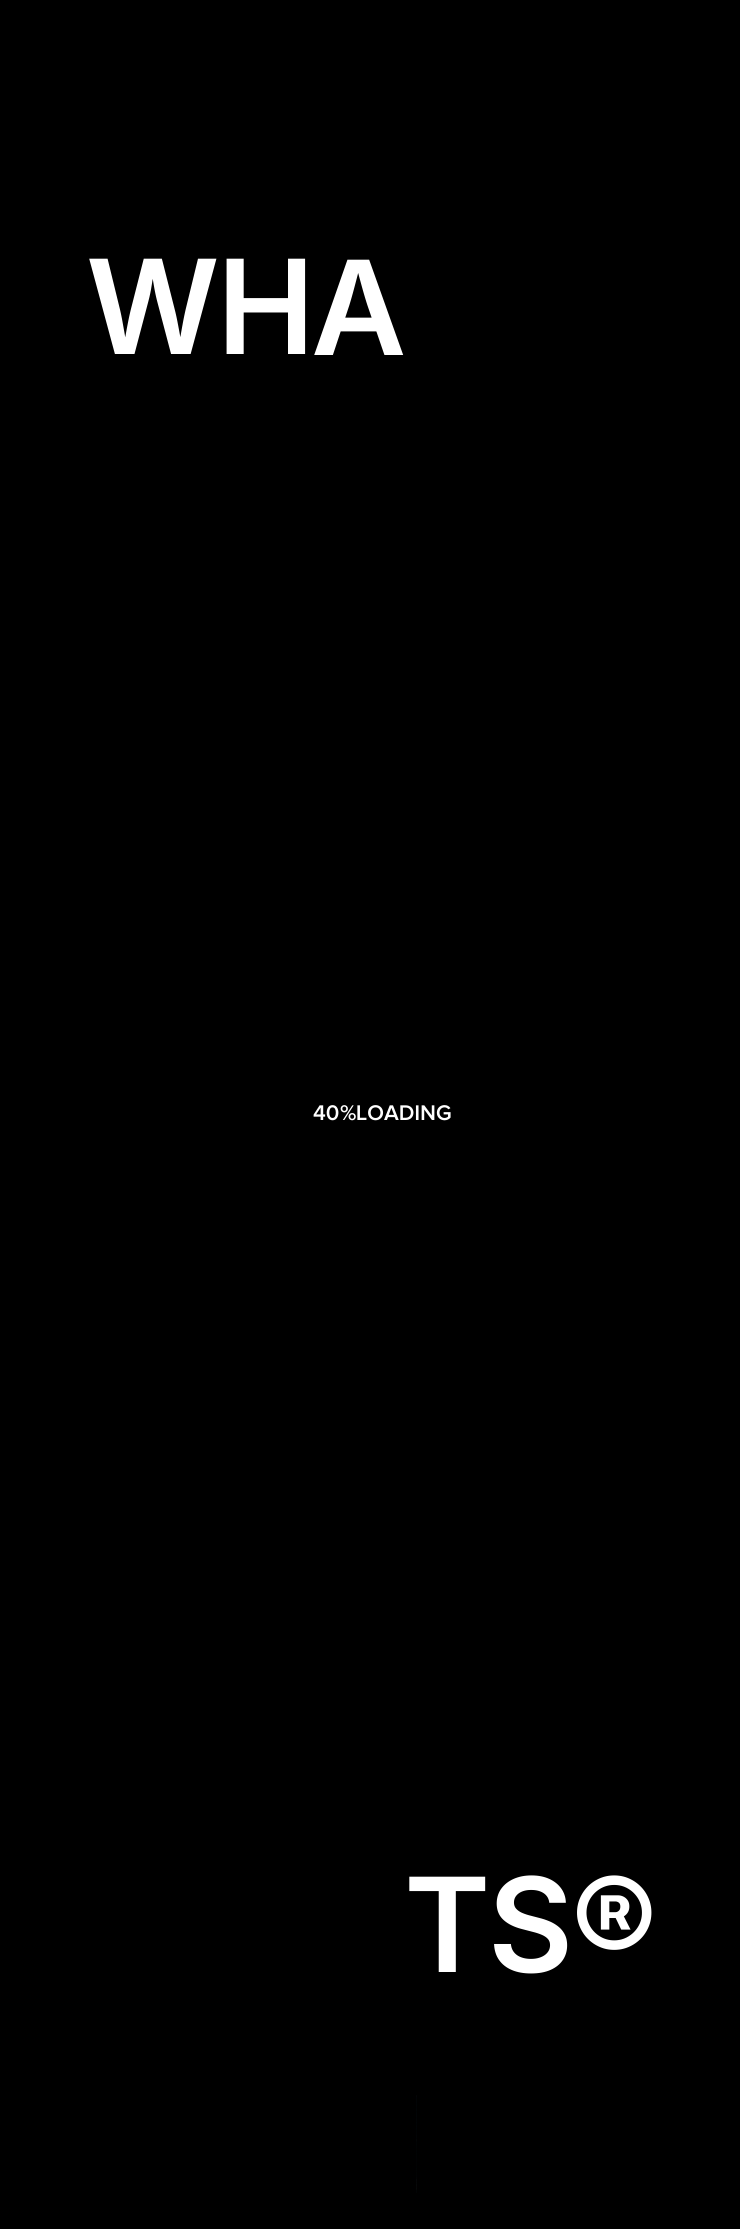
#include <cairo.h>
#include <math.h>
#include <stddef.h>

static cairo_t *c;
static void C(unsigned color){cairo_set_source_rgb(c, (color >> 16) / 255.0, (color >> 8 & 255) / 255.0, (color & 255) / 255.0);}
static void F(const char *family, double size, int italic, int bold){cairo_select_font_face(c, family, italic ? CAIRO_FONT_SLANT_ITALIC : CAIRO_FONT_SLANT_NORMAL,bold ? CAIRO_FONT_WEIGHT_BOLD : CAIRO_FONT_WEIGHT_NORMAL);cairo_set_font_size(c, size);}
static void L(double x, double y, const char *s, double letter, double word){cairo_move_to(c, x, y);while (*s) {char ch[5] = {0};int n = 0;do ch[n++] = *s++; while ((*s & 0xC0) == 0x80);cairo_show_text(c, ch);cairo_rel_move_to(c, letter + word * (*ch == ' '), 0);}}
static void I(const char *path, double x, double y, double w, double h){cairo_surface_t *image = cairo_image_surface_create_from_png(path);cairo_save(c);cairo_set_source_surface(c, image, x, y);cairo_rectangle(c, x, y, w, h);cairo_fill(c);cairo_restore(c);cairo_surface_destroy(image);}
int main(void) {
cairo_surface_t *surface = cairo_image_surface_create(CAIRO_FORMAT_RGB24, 740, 2229);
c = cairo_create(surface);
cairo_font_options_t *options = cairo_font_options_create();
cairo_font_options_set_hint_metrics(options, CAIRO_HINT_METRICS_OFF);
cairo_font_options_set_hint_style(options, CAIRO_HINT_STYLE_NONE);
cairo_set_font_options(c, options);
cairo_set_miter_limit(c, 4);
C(0x000000);
cairo_paint(c);
F("Inter SemiBold",131,0,0);
C(0xffffff);
L(86,354,"WH",-2.5,0);
L(311,355,"A",-2.5,0);
L(404,1972,"TS®",-2.5,0);
I("1.png",313,1105,26,16);
I("2.png",340,1105,16,16);
I("3.png",357,1105,94,16);
I("4.png",416,2095,1,98);
cairo_surface_write_to_png(surface, "o.png");
cairo_font_options_destroy(options);
cairo_destroy(c);
cairo_surface_destroy(surface);
return 0;
}
